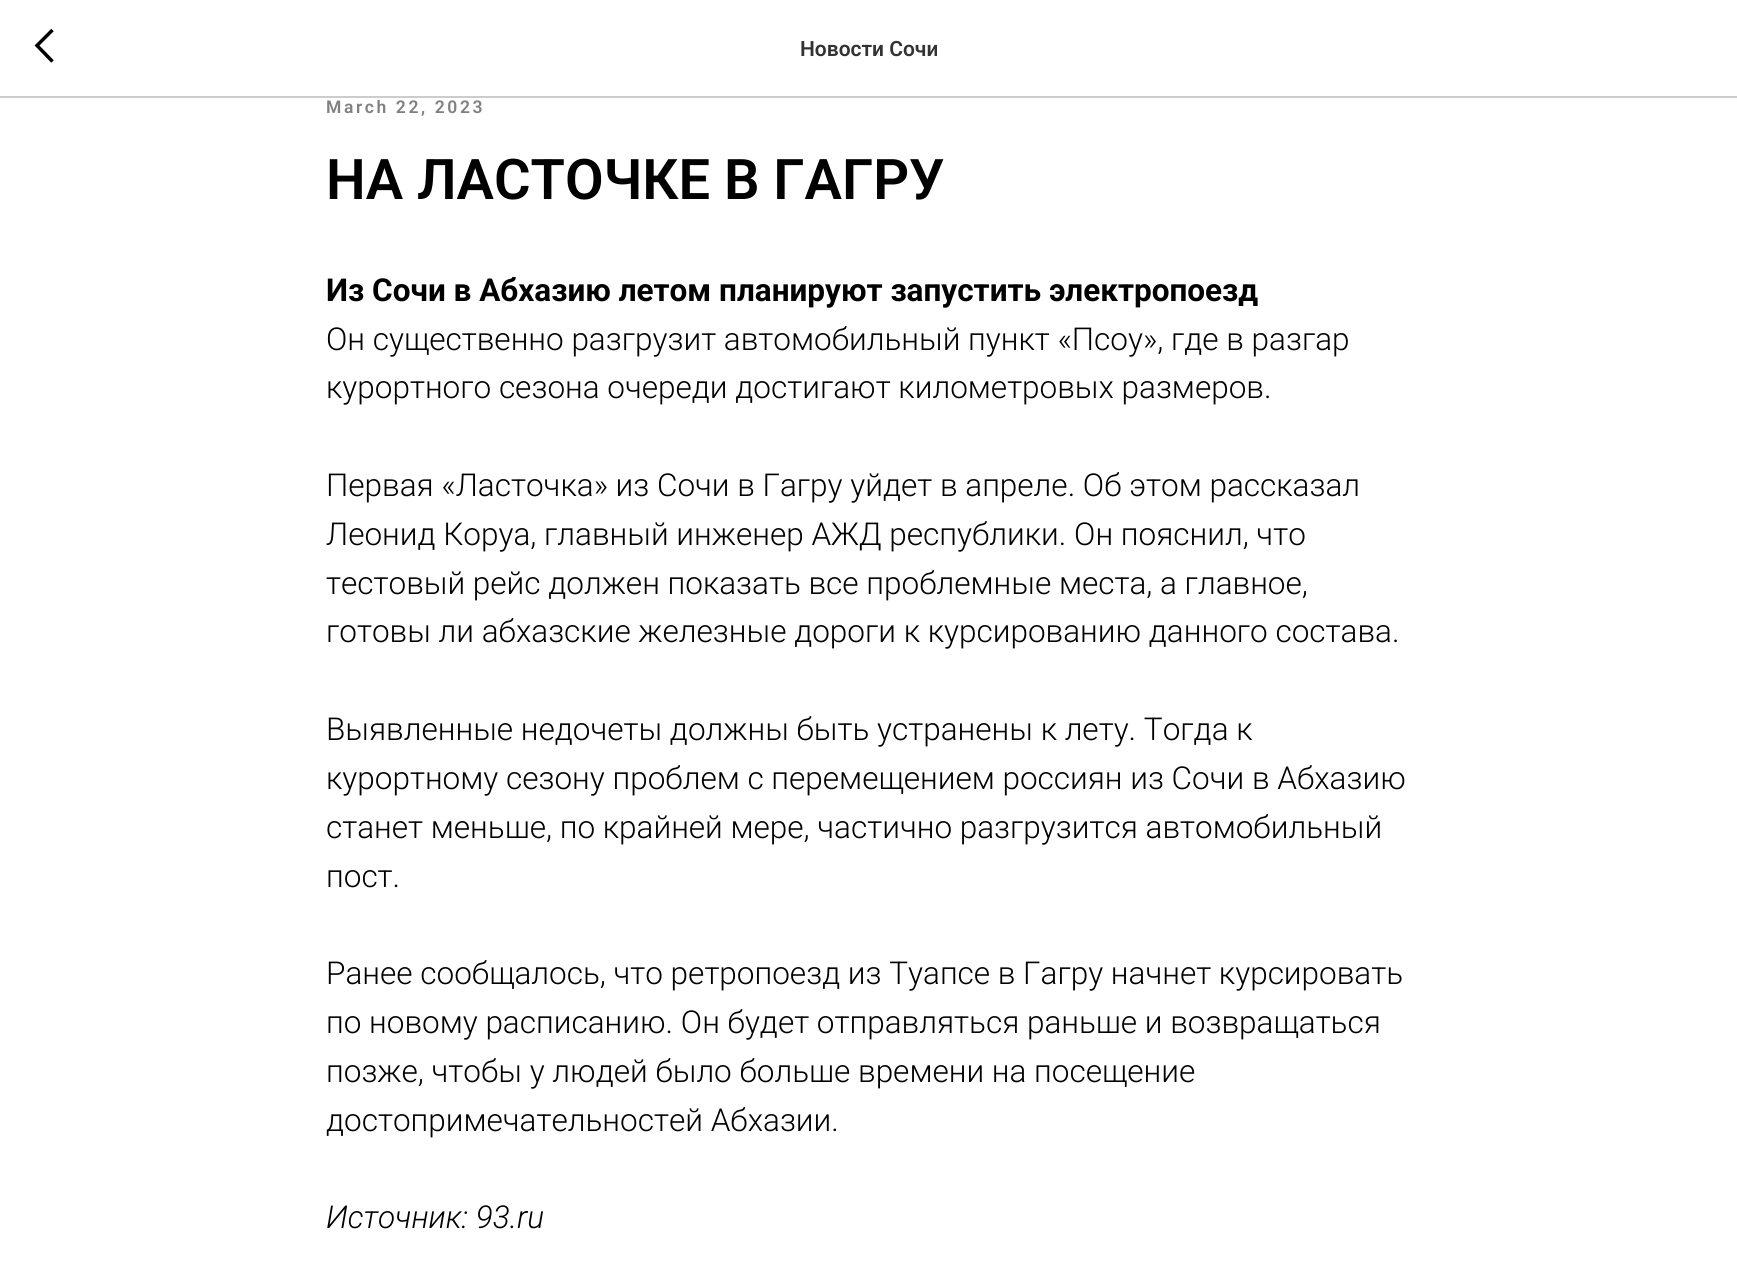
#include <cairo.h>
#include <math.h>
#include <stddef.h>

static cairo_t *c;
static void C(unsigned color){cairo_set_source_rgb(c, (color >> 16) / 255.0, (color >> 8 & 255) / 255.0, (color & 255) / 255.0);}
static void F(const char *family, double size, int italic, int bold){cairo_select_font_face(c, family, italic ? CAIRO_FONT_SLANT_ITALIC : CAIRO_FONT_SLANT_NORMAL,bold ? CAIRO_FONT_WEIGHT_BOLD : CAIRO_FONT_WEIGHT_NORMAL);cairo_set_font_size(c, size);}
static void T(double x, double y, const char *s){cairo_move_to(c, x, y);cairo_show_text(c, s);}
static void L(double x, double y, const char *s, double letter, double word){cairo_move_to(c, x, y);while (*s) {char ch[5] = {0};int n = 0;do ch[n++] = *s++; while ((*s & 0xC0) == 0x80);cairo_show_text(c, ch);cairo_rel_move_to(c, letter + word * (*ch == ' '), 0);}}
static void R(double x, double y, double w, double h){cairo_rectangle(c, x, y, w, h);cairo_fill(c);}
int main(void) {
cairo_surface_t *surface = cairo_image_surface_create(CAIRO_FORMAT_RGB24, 1737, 1261);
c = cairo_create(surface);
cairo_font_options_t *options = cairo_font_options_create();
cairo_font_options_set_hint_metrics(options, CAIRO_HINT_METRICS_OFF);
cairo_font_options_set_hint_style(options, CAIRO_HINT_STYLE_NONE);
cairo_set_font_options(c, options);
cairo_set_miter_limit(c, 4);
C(0xffffff);
cairo_paint(c);
C(0xcccccc);
R(0,96,1737,2);
cairo_new_path(c);
cairo_move_to(c,52.5,61.5);
cairo_line_to(c,37,45.5);
cairo_line_to(c,52.5,30);
C(0x000000);
cairo_set_line_width(c,3.5);
cairo_stroke(c);
F("Roboto SemiBold",21,0,0);
C(0x333333);
T(800,56,"Новости Сочи");
F("Roboto SemiBold",17.5,0,0);
C(0x808080);
L(326,113,"March 22, 2023",2.6,0);
F("Roboto SemiBold",56,0,0);
C(0x000000);
T(326,199,"НА ЛАСТОЧКЕ В ГАГРУ");
F("Roboto",31.5,0,1);
T(326,301,"Из Сочи в Абхазию летом планируют запустить электропоезд");
F("Roboto Light",31.5,0,0);
T(326,350,"Он существенно разгрузит автомобильный пункт «Псоу», где в разгар");
T(326,398,"курортного сезона очереди достигают километровых размеров.");
T(326,496,"Первая «Ласточка» из Сочи в Гагру уйдет в апреле. Об этом рассказал");
T(326,545,"Леонид Коруа, главный инженер АЖД республики. Он пояснил, что");
T(326,594,"тестовый рейс должен показать все проблемные места, а главное,");
T(326,642,"готовы ли абхазские железные дороги к курсированию данного состава.");
T(326,740,"Выявленные недочеты должны быть устранены к лету. Тогда к");
T(326,789,"курортному сезону проблем с перемещением россиян из Сочи в Абхазию");
T(326,838,"станет меньше, по крайней мере, частично разгрузится автомобильный");
T(326,887,"пост.");
T(326,984,"Ранее сообщалось, что ретропоезд из Туапсе в Гагру начнет курсировать");
T(326,1033,"по новому расписанию. Он будет отправляться раньше и возвращаться");
T(326,1082,"позже, чтобы у людей было больше времени на посещение");
T(326,1131,"достопримечательностей Абхазии.");
F("Roboto Light",31.5,1,0);
T(326,1228,"Источник: 93.ru");
cairo_surface_write_to_png(surface, "o.png");
cairo_font_options_destroy(options);
cairo_destroy(c);
cairo_surface_destroy(surface);
return 0;
}
